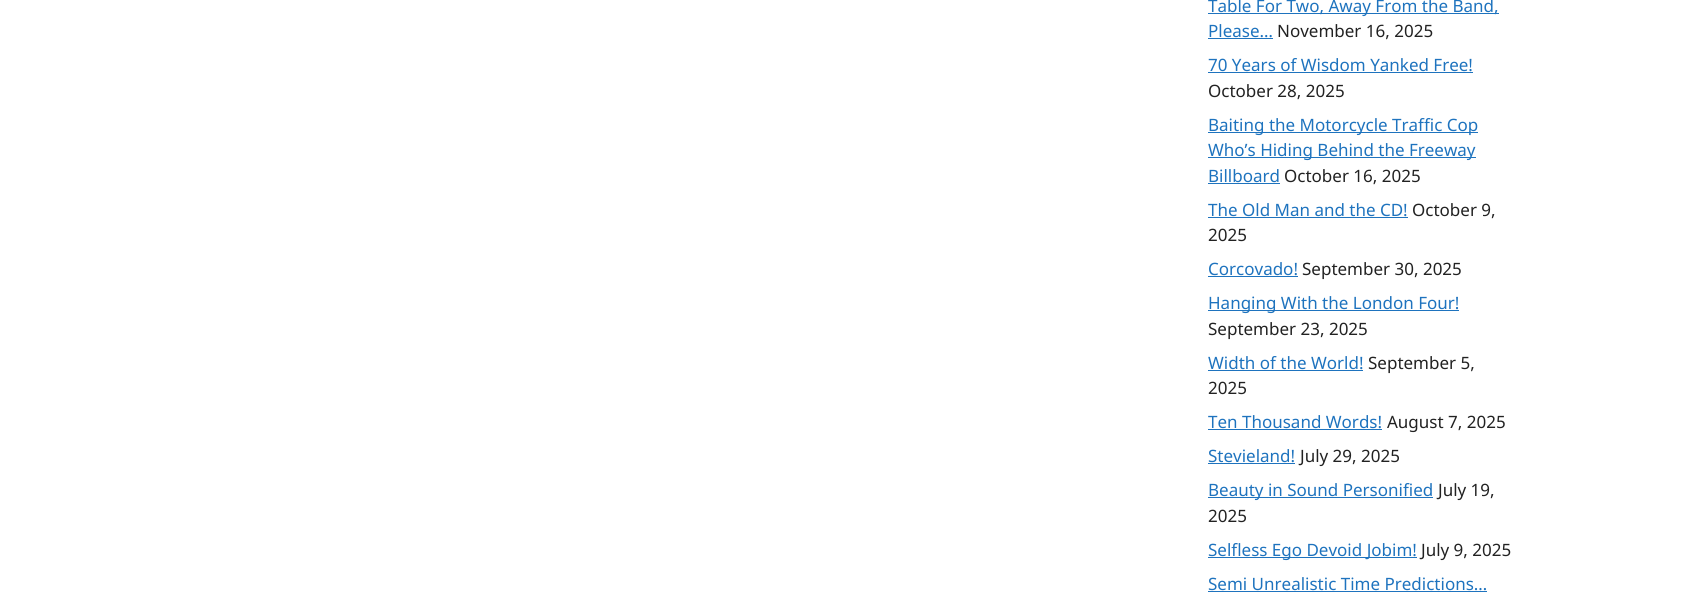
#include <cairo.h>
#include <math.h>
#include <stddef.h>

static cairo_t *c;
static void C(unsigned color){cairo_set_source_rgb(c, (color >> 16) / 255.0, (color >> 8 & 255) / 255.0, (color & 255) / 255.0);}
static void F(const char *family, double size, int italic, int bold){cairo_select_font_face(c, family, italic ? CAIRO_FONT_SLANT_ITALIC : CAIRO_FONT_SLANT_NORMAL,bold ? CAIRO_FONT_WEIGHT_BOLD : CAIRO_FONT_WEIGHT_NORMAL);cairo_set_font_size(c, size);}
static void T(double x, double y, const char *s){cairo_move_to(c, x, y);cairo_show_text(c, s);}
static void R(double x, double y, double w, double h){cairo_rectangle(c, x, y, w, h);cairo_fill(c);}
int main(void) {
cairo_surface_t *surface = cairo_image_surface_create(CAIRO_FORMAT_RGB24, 1686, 601);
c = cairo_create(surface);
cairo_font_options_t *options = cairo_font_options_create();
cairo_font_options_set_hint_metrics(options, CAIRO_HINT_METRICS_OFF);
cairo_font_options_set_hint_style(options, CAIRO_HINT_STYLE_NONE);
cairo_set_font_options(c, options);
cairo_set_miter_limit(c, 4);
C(0xffffff);
cairo_paint(c);
C(0x1e73be);
R(1208,13,291,1);
F("Noto Sans",17,0,0);
T(1208,12,"Table For Two, Away From the Band,");
T(1208,37,"Please…");
R(1208,38,65,1);
C(0x222222);
T(1277,37,"November 16, 2025");
C(0x1e73be);
T(1208,71,"70 Years of Wisdom Yanked Free!");
R(1208,72,265,1);
C(0x222222);
T(1208,97,"October 28, 2025");
C(0x1e73be);
R(1208,132,270,1);
T(1208,131,"Baiting the Motorcycle Traffic Cop");
R(1208,157,268,1);
T(1208,156,"Who’s Hiding Behind the Freeway");
T(1208,182,"Billboard");
R(1208,183,72,1);
C(0x222222);
T(1284,182,"October 16, 2025");
C(0x1e73be);
T(1208,216,"The Old Man and the CD!");
R(1208,217,200,1);
C(0x222222);
T(1412,216,"October 9,");
T(1208,241,"2025");
C(0x1e73be);
T(1208,275,"Corcovado!");
R(1208,276,90,1);
C(0x222222);
T(1302,275,"September 30, 2025");
C(0x1e73be);
R(1208,310,251,1);
T(1208,309,"Hanging With the London Four!");
C(0x222222);
T(1208,335,"September 23, 2025");
C(0x1e73be);
T(1208,369,"Width of the World!");
R(1208,370,155,1);
C(0x222222);
T(1368,369,"September 5,");
T(1208,394,"2025");
C(0x1e73be);
T(1208,428,"Ten Thousand Words!");
R(1208,429,174,1);
C(0x222222);
T(1387,428,"August 7, 2025");
C(0x1e73be);
T(1208,462,"Stevieland!");
R(1208,463,87,1);
C(0x222222);
T(1300,462,"July 29, 2025");
C(0x1e73be);
R(1208,497,225,1);
T(1208,496,"Beauty in Sound Personified");
C(0x222222);
T(1438,496,"July 19,");
T(1208,522,"2025");
C(0x1e73be);
R(1208,557,209,1);
T(1208,556,"Selfless Ego Devoid Jobim!");
C(0x222222);
T(1421,556,"July 9, 2025");
C(0x1e73be);
T(1208,590,"Semi Unrealistic Time Predictions…");
R(1208,591,279,1);
cairo_surface_write_to_png(surface, "o.png");
cairo_font_options_destroy(options);
cairo_destroy(c);
cairo_surface_destroy(surface);
return 0;
}
